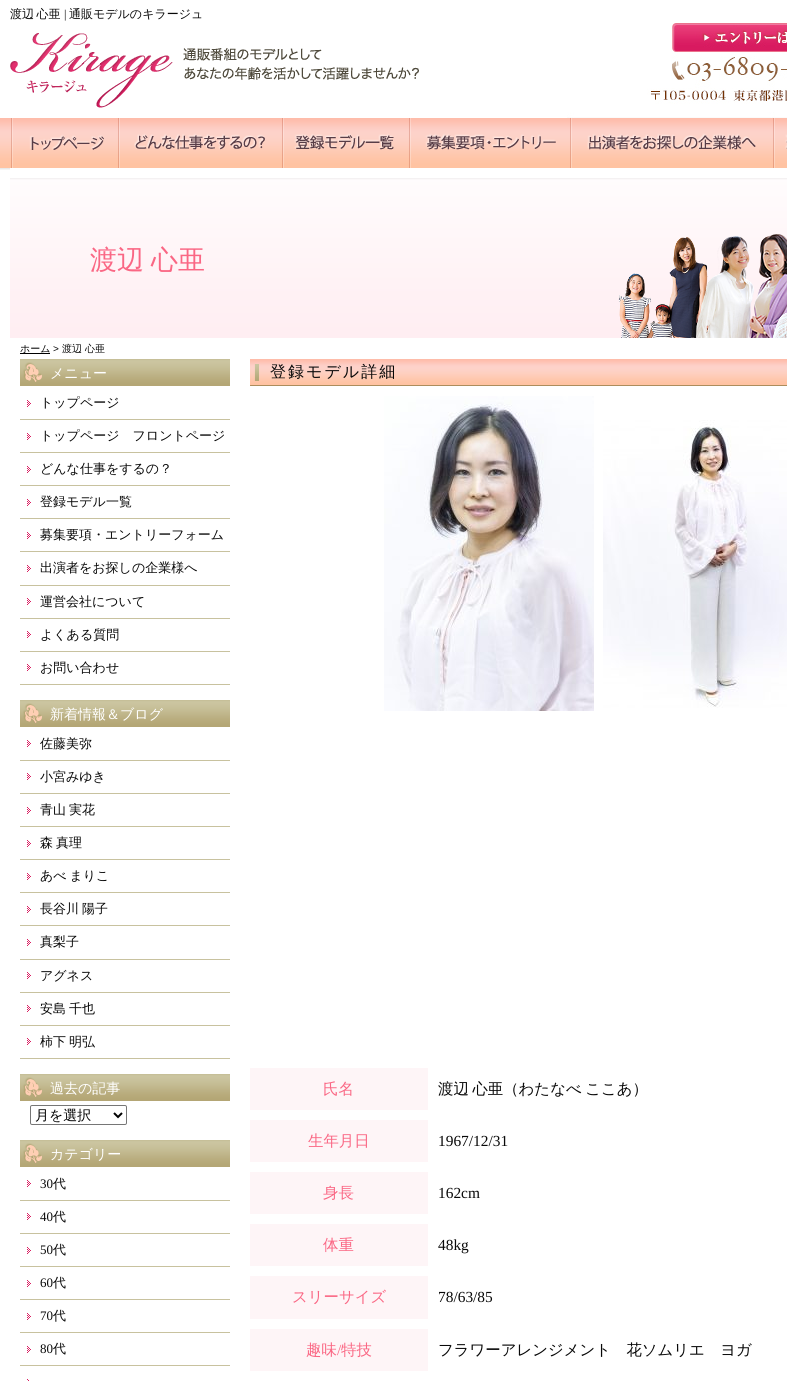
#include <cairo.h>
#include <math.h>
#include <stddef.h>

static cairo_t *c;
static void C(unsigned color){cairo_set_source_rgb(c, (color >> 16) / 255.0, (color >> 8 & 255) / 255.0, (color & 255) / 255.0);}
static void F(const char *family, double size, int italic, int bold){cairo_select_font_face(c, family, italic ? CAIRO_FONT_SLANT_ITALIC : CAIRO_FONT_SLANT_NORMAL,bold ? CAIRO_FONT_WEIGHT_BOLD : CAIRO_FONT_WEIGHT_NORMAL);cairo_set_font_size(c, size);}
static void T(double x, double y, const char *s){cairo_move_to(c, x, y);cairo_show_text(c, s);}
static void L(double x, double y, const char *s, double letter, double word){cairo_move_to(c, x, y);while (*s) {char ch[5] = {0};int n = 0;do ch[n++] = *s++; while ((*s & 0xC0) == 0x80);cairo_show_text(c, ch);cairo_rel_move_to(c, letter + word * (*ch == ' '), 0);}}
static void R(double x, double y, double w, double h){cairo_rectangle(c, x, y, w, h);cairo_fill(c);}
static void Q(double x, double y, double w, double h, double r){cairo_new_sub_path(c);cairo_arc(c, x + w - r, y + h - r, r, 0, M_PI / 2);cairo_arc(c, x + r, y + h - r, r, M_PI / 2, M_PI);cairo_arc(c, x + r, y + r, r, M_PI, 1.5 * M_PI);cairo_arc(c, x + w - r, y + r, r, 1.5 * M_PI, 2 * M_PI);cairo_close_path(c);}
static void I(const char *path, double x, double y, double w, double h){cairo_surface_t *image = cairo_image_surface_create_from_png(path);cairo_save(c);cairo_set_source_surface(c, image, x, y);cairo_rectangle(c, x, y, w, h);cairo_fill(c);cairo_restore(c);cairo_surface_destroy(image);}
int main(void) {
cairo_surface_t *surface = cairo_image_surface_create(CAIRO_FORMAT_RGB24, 787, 1381);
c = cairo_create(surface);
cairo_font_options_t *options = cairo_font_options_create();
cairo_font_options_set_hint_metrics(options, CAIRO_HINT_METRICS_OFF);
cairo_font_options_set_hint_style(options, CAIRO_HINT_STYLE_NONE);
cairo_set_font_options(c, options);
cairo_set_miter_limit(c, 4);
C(0xffffff);
cairo_paint(c);
I("1.png",0,118,787,52);
F("WenQuanYi Zen Hei Medium",12,0,0);
C(0x080808);
L(10,18,"渡辺 心亜",0,-1);
F("Liberation Serif",12,0,0);
T(64,18,"|");
F("WenQuanYi Zen Hei Medium",12,0,0);
T(69,18,"通販モデルのキラージュ");
I("2.png",10,33,409,75);
I("3.png",567,23,220,95);
I("4.png",11,118,109,50);
I("5.png",134,118,150,50);
I("6.png",294,118,117,50);
I("7.png",425,118,147,50);
I("8.png",587,118,188,50);
I("9.png",785,134,2,15);
C(0xffffff);
R(10,168,777,2);
I("10.png",10,178,777,160);
F("WenQuanYi Zen Hei Medium",27,0,0);
C(0xfa6784);
L(90,269,"渡辺 心亜",0,-1);
F("WenQuanYi Zen Hei Medium",10,0,0);
C(0x000000);
T(20,352,"ホーム");
R(20,353,30,1);
F("Liberation Sans",10,0,0);
C(0x080808);
T(53,352,">");
F("WenQuanYi Zen Hei Medium",10,0,0);
T(62,352,"渡辺 心亜");
I("11.png",20,359,210,27);
F("WenQuanYi Zen Hei Medium",14,0,0);
C(0xffffff);
T(50,378,"メニュー");
I("12.png",27,400,4,7);
C(0xc8c29f);
R(20,419,210,1);
F("WenQuanYi Zen Hei Medium",13,0,0);
C(0x080808);
T(40,407,"トップページ");
I("12.png",27,433,4,7);
C(0xc8c29f);
R(20,452,210,1);
C(0x080808);
T(40,440,"トップページ　フロントページ");
I("12.png",27,466,4,7);
C(0xc8c29f);
R(20,485,210,1);
C(0x080808);
T(40,473,"どんな仕事をするの？");
I("12.png",27,499,4,7);
C(0xc8c29f);
R(20,518,210,1);
C(0x080808);
T(40,506,"登録モデル一覧");
I("12.png",27,532,4,7);
C(0xc8c29f);
R(20,551,210,1);
C(0x080808);
T(40,539,"募集要項・エントリーフォーム");
I("12.png",27,565,4,7);
C(0xc8c29f);
R(20,585,210,1);
C(0x080808);
T(40,572,"出演者をお探しの企業様へ");
I("12.png",27,598,4,7);
C(0xc8c29f);
R(20,618,210,1);
C(0x080808);
T(40,606,"運営会社について");
I("12.png",27,631,4,7);
C(0xc8c29f);
R(20,651,210,1);
C(0x080808);
T(40,639,"よくある質問");
I("12.png",27,664,4,7);
C(0xc8c29f);
R(20,684,210,1);
C(0x080808);
T(40,672,"お問い合わせ");
I("11.png",20,700,210,27);
F("WenQuanYi Zen Hei Medium",14,0,0);
C(0xffffff);
T(50,719,"新着情報＆ブログ");
I("12.png",27,740,4,7);
C(0xc8c29f);
R(20,760,210,1);
F("WenQuanYi Zen Hei Medium",13,0,0);
C(0x080808);
T(40,748,"佐藤美弥");
I("12.png",27,773,4,7);
C(0xc8c29f);
R(20,793,210,1);
C(0x080808);
T(40,781,"小宮みゆき");
I("12.png",27,807,4,7);
C(0xc8c29f);
R(20,826,210,1);
C(0x080808);
L(40,814,"青山 実花",0,-1);
I("12.png",27,840,4,7);
C(0xc8c29f);
R(20,859,210,1);
C(0x080808);
L(40,847,"森 真理",0,-1);
I("12.png",27,873,4,7);
C(0xc8c29f);
R(20,892,210,1);
C(0x080808);
L(40,880,"あべ まりこ",0,-1);
I("12.png",27,906,4,7);
C(0xc8c29f);
R(20,925,210,1);
C(0x080808);
L(40,913,"長谷川 陽子",0,-1);
I("12.png",27,939,4,7);
C(0xc8c29f);
R(20,959,210,1);
C(0x080808);
T(40,946,"真梨子");
I("12.png",27,972,4,7);
C(0xc8c29f);
R(20,992,210,1);
C(0x080808);
T(40,980,"アグネス");
I("12.png",27,1005,4,7);
C(0xc8c29f);
R(20,1025,210,1);
C(0x080808);
L(40,1013,"安島 千也",0,-1);
I("12.png",27,1038,4,7);
C(0xc8c29f);
R(20,1058,210,1);
C(0x080808);
L(40,1046,"柿下 明弘",0,-1);
I("11.png",20,1074,210,27);
F("WenQuanYi Zen Hei Medium",14,0,0);
C(0xffffff);
T(50,1093,"過去の記事");
Q(30.5,1105.5,96,19,1.5);
C(0x767676);
cairo_set_line_width(c,1);
cairo_stroke(c);
cairo_new_path(c);
cairo_move_to(c,114,1113);
cairo_line_to(c,118,1117);
cairo_line_to(c,122,1113);
C(0x000000);
cairo_set_line_width(c,2);
cairo_stroke(c);
T(35,1120,"月を選択");
I("11.png",20,1140,210,27);
C(0xffffff);
T(50,1159,"カテゴリー");
I("12.png",27,1180,4,7);
C(0xc8c29f);
R(20,1200,210,1);
F("Liberation Serif",13,0,0);
C(0x080808);
T(40,1188,"30");
F("WenQuanYi Zen Hei Medium",13,0,0);
T(53,1188,"代");
I("12.png",27,1213,4,7);
C(0xc8c29f);
R(20,1233,210,1);
F("Liberation Serif",13,0,0);
C(0x080808);
T(40,1221,"40");
F("WenQuanYi Zen Hei Medium",13,0,0);
T(53,1221,"代");
I("12.png",27,1247,4,7);
C(0xc8c29f);
R(20,1266,210,1);
F("Liberation Serif",13,0,0);
C(0x080808);
T(40,1254,"50");
F("WenQuanYi Zen Hei Medium",13,0,0);
T(53,1254,"代");
I("12.png",27,1280,4,7);
C(0xc8c29f);
R(20,1299,210,1);
F("Liberation Serif",13,0,0);
C(0x080808);
T(40,1287,"60");
F("WenQuanYi Zen Hei Medium",13,0,0);
T(53,1287,"代");
I("12.png",27,1313,4,7);
C(0xc8c29f);
R(20,1332,210,1);
F("Liberation Serif",13,0,0);
C(0x080808);
T(40,1320,"70");
F("WenQuanYi Zen Hei Medium",13,0,0);
T(53,1320,"代");
I("12.png",27,1346,4,7);
C(0xc8c29f);
R(20,1365,210,1);
F("Liberation Serif",13,0,0);
C(0x080808);
T(40,1353,"80");
F("WenQuanYi Zen Hei Medium",13,0,0);
T(53,1353,"代");
I("13.png",27,1379,2,2);
I("14.png",250,359,537,27);
F("WenQuanYi Zen Hei Medium",16,0,0);
L(270,377,"登録モデル詳細",2,0);
I("15.png",384,396,210,315);
I("16.png",603,420,184,288);
C(0xfef5f7);
R(250,1068,178,42);
F("WenQuanYi Zen Hei Medium",15.4,0,0);
C(0xfa6784);
T(323,1094,"氏名");
C(0x080808);
L(438,1094,"渡辺 心亜（わたなべ ここあ）",0,-1);
C(0xfef5f7);
R(250,1120,178,42);
C(0xfa6784);
T(308,1146,"生年月日");
F("Liberation Serif",15.4,0,0);
C(0x080808);
T(438,1146,"1967/12/31");
C(0xfef5f7);
R(250,1172,178,42);
F("WenQuanYi Zen Hei Medium",15.4,0,0);
C(0xfa6784);
T(323,1198,"身長");
F("Liberation Serif",15.4,0,0);
C(0x080808);
T(438,1198,"162cm");
C(0xfef5f7);
R(250,1224,178,42);
F("WenQuanYi Zen Hei Medium",15.4,0,0);
C(0xfa6784);
T(323,1250,"体重");
F("Liberation Serif",15.4,0,0);
C(0x080808);
T(438,1250,"48kg");
C(0xfef5f7);
R(250,1276,178,43);
F("WenQuanYi Zen Hei Medium",15.4,0,0);
C(0xfa6784);
T(292,1302,"スリーサイズ");
F("Liberation Serif",15.4,0,0);
C(0x080808);
T(438,1302,"78/63/85");
C(0xfef5f7);
R(250,1329,178,42);
F("WenQuanYi Zen Hei Medium",15.4,0,0);
C(0xfa6784);
T(306,1355,"趣味");
F("Liberation Serif",15.4,0,0);
T(337,1355,"/");
F("WenQuanYi Zen Hei Medium",15.4,0,0);
T(341,1355,"特技");
C(0x080808);
T(438,1355,"フラワーアレンジメント　花ソムリエ　ヨガ");
cairo_surface_write_to_png(surface, "o.png");
cairo_font_options_destroy(options);
cairo_destroy(c);
cairo_surface_destroy(surface);
return 0;
}
